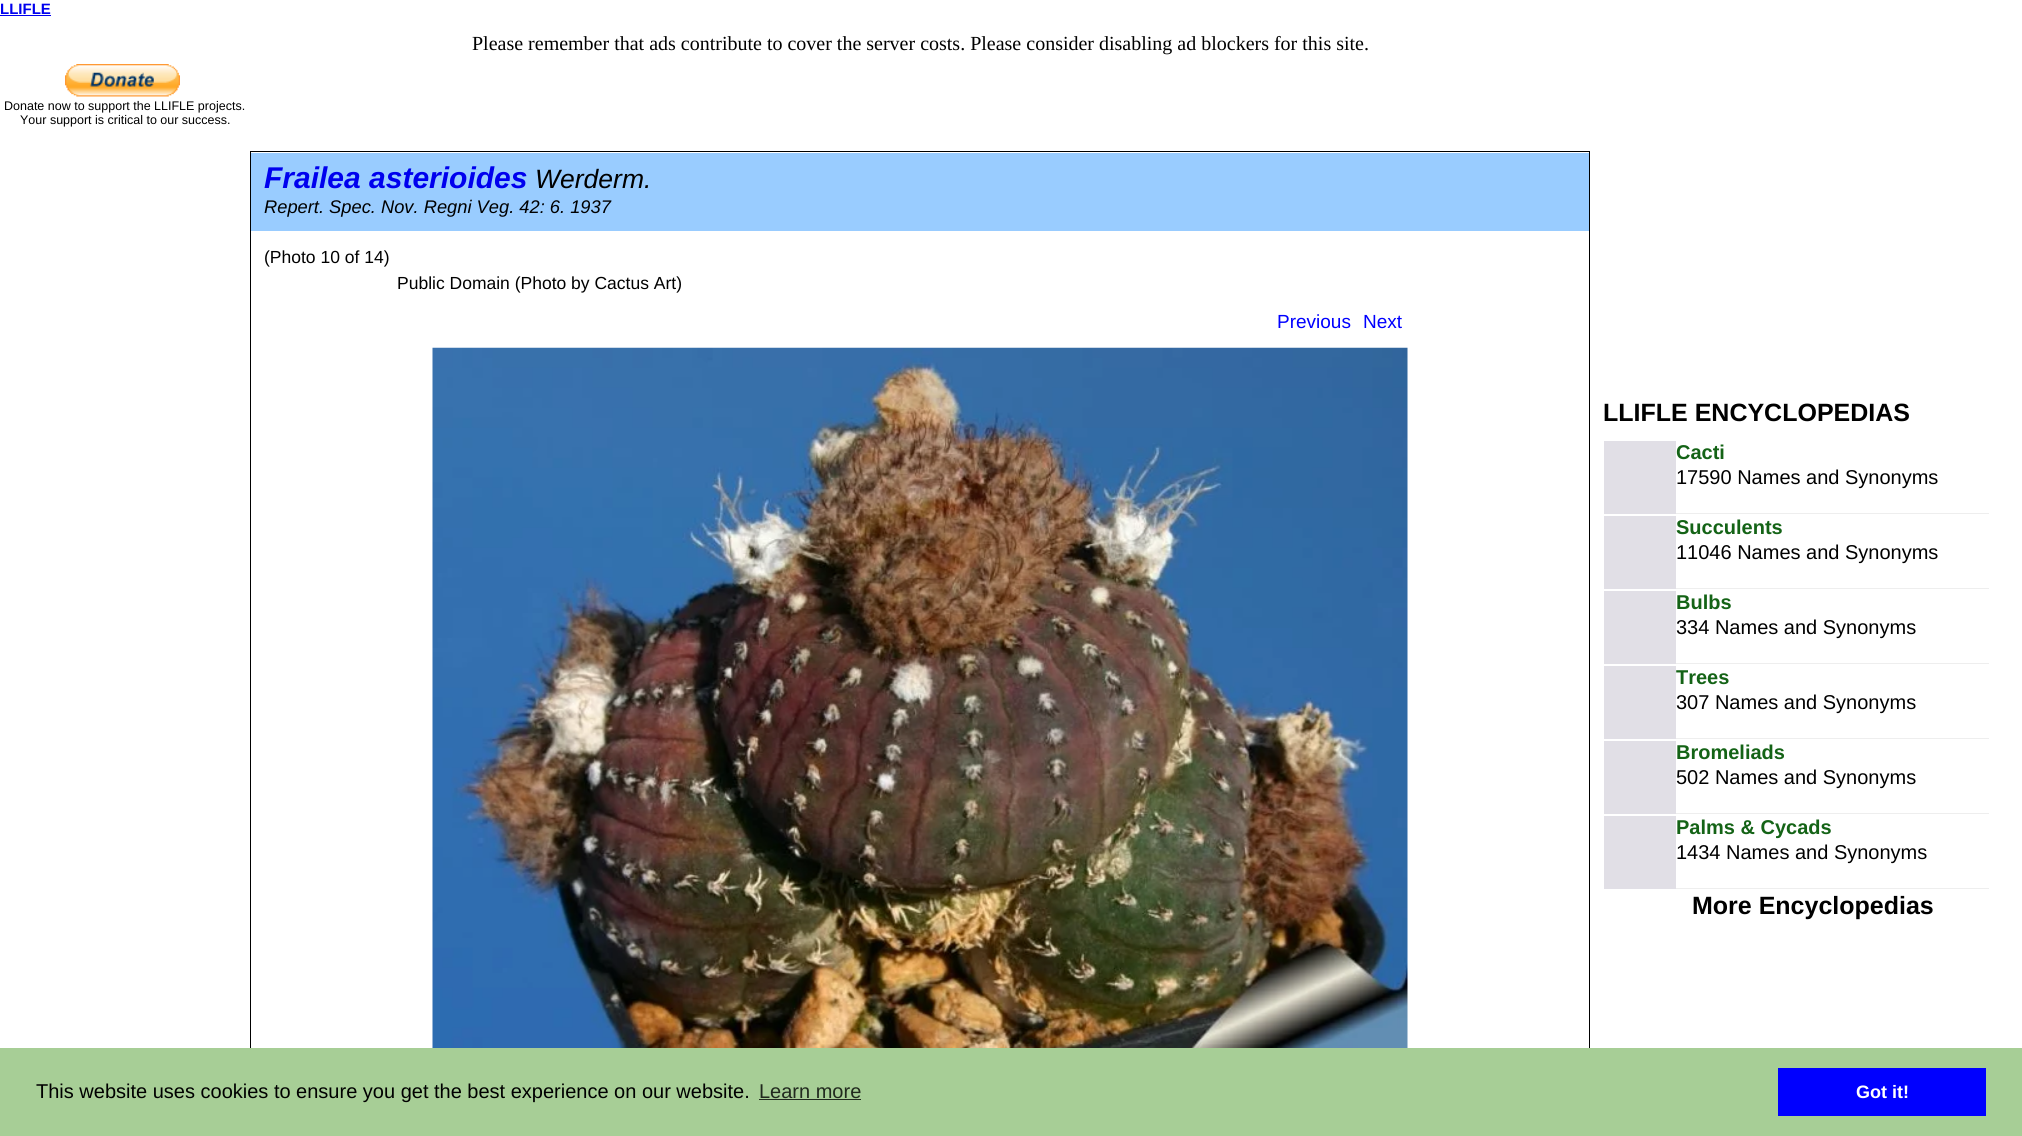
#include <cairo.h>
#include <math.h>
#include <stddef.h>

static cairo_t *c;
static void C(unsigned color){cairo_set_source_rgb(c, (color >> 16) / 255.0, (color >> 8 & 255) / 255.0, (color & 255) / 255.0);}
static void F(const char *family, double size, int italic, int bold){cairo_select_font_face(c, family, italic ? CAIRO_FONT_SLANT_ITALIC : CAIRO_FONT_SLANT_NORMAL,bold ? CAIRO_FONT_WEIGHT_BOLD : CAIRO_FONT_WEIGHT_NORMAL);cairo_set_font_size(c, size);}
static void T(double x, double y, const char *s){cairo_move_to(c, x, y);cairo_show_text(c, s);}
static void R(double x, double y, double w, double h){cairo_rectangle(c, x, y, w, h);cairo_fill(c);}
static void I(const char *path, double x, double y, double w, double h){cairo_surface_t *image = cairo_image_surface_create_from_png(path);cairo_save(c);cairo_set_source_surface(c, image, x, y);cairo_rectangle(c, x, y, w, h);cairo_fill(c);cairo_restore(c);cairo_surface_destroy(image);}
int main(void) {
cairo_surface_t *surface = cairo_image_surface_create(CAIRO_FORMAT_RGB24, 2022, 1136);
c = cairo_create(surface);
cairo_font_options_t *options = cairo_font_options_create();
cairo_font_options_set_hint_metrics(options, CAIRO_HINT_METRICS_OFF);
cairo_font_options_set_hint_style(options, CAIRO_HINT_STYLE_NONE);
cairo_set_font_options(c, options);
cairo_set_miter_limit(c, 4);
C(0xffffff);
cairo_paint(c);
F("Liberation Sans",15,0,1);
C(0x0000ee);
T(0,14,"LLIFLE");
R(0,15,51,1);
F("Liberation Serif",20,0,0);
C(0x000000);
T(472,50,"Please remember that ads contribute to cover the server costs. Please consider disabling ad blockers for this site.");
I("1.png",65,64,115,33);
F("Liberation Sans",12.5,0,0);
T(4,110,"Donate now to support the LLIFLE projects.");
T(20,124,"Your support is critical to our success.");
cairo_rectangle(c,250.5,151.5,1339,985);
cairo_set_line_width(c,1);
cairo_stroke(c);
C(0x99ccff);
R(251,153,1338,78);
F("Liberation Sans",30,1,1);
C(0x0000ee);
T(264,188,"Frailea asterioides");
F("Liberation Sans",26.5,1,0);
C(0x000000);
T(535,188,"Werderm.");
F("Liberation Sans",18.3,1,0);
T(264,213,"Repert. Spec. Nov. Regni Veg. 42: 6. 1937");
F("Liberation Sans",17.5,0,0);
T(264,263,"(Photo 10 of 14)");
T(397,289,"Public Domain (Photo by Cactus Art)");
F("Liberation Sans",19,0,0);
C(0x0000ff);
T(1277,328,"Previous");
T(1363,328,"Next");
I("2.png",432,347,976,701);
F("Liberation Sans",25,0,1);
C(0x000000);
T(1603,421,"LLIFLE ENCYCLOPEDIAS");
C(0xe1dfe6);
R(1604,441,72,73);
F("Liberation Sans",20,0,1);
C(0x146316);
T(1676,459,"Cacti");
F("Liberation Sans",20,0,0);
C(0x000000);
T(1676,484,"17590 Names and Synonyms");
C(0xeeeeee);
R(1676,513,313,1);
C(0xe1dfe6);
R(1604,516,72,73);
F("Liberation Sans",20,0,1);
C(0x146316);
T(1676,534,"Succulents");
F("Liberation Sans",20,0,0);
C(0x000000);
T(1676,559,"11046 Names and Synonyms");
C(0xeeeeee);
R(1676,588,313,1);
C(0xe1dfe6);
R(1604,591,72,73);
F("Liberation Sans",20,0,1);
C(0x146316);
T(1676,609,"Bulbs");
F("Liberation Sans",20,0,0);
C(0x000000);
T(1676,634,"334 Names and Synonyms");
C(0xeeeeee);
R(1676,663,313,1);
C(0xe1dfe6);
R(1604,666,72,73);
F("Liberation Sans",20,0,1);
C(0x146316);
T(1676,684,"Trees");
F("Liberation Sans",20,0,0);
C(0x000000);
T(1676,709,"307 Names and Synonyms");
C(0xeeeeee);
R(1676,738,313,1);
C(0xe1dfe6);
R(1604,741,72,73);
F("Liberation Sans",20,0,1);
C(0x146316);
T(1676,759,"Bromeliads");
F("Liberation Sans",20,0,0);
C(0x000000);
T(1676,784,"502 Names and Synonyms");
C(0xeeeeee);
R(1676,813,313,1);
C(0xe1dfe6);
R(1604,816,72,73);
F("Liberation Sans",20,0,1);
C(0x146316);
T(1676,834,"Palms & Cycads");
F("Liberation Sans",20,0,0);
C(0x000000);
T(1676,859,"1434 Names and Synonyms");
C(0xeeeeee);
R(1676,888,313,1);
F("Liberation Sans",25,0,1);
C(0x000000);
T(1692,914,"More Encyclopedias");
C(0xa7ce96);
R(0,1048,2022,88);
F("Liberation Sans",20,0,0);
C(0x000000);
T(36,1098,"This website uses cookies to ensure you get the best experience on our website.");
C(0x21291e);
T(759,1098,"Learn more");
R(759,1099,102,1);
C(0x0000ff);
R(1778,1068,208,48);
F("Liberation Sans",18,0,1);
C(0xffffff);
T(1856,1098,"Got it!");
cairo_surface_write_to_png(surface, "o.png");
cairo_font_options_destroy(options);
cairo_destroy(c);
cairo_surface_destroy(surface);
return 0;
}
